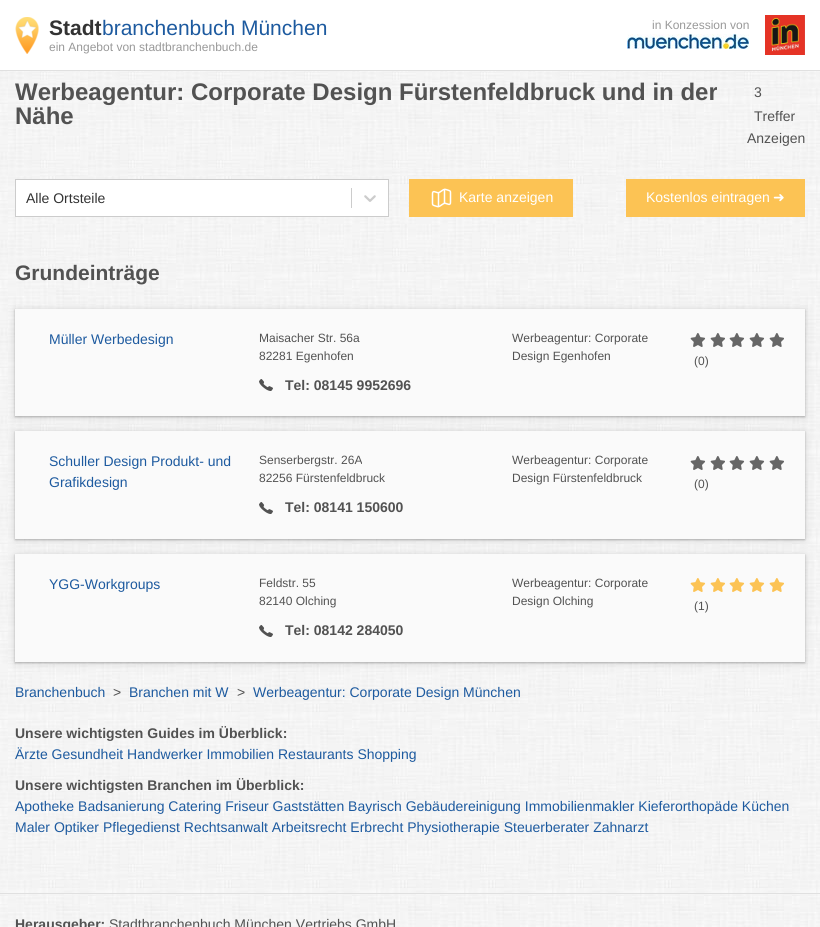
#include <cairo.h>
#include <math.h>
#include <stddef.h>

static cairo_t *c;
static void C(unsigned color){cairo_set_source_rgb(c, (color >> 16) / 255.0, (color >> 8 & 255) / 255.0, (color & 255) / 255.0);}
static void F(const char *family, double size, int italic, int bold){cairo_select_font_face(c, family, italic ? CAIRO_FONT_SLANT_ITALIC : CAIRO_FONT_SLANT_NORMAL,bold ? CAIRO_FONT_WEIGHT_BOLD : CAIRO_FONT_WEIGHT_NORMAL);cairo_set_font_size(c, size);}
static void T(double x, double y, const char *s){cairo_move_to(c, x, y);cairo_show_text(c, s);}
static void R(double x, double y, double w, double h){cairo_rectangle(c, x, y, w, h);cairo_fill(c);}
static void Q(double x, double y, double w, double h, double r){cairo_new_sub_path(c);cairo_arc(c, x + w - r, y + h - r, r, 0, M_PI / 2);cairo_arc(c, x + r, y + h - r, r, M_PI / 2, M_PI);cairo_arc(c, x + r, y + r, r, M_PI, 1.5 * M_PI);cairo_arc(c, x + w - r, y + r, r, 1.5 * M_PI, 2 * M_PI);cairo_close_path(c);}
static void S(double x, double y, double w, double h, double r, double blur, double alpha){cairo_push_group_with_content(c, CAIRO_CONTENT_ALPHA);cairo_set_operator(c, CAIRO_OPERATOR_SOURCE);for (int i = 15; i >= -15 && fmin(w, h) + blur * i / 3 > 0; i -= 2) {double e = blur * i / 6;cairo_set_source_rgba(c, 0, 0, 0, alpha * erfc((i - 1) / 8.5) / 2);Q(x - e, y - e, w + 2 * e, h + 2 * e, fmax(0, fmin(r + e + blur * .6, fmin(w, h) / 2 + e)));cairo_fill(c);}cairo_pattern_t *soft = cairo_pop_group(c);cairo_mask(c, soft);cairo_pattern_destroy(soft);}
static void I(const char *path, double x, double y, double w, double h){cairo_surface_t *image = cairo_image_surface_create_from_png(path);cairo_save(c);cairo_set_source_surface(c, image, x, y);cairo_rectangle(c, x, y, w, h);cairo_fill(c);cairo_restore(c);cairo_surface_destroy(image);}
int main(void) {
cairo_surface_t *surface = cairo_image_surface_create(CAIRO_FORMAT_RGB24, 820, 927);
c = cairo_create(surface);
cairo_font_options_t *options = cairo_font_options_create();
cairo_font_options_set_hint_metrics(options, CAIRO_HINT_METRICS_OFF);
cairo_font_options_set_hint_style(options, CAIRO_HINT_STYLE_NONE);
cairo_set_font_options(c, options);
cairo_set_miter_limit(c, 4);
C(0xffffff);
cairo_paint(c);
I("1.png",0,71,820,856);
C(0xe0e0e0);
R(0,70,820,1);
I("2.png",15,17,24,37);
F("Liberation Sans",21,0,1);
C(0x333333);
T(49,35,"Stadt");
F("Liberation Sans",21,0,0);
C(0x1d5a9f);
T(102,35,"branchenbuch München");
F("Liberation Sans",12,0,0);
C(0x999999);
T(49,51,"ein Angebot von stadtbranchenbuch.de");
T(652,29,"in Konzession von");
I("3.png",627,34,122,15);
I("4.png",765,15,40,40);
F("Liberation Sans",24,0,1);
C(0x525252);
T(15,100,"Werbeagentur: Corporate Design Fürstenfeldbruck und in der");
T(15,124,"Nähe");
F("Liberation Sans",14,0,0);
T(754,97,"3");
T(754,121,"Treffer");
T(747,143,"Anzeigen");
C(0xffffff);
cairo_rectangle(c,15.5,179.5,373,37);
cairo_fill_preserve(c);
C(0xcccccc);
cairo_set_line_width(c,1);
cairo_stroke(c);
C(0x333333);
T(26,203,"Alle Ortsteile");
C(0xcccccc);
R(351,188,1,20);
I("5.png",364,195,12,7);
C(0xfcc354);
R(409,179,164,38);
I("6.png",431,188,21,20);
C(0xffffff);
T(459,202,"Karte anzeigen");
C(0xfcc354);
R(626,179,179,38);
C(0xffffff);
T(646,202,"Kostenlos eintragen");
F("DejaVu Sans",14,0,0);
T(773,202,"➜");
F("Liberation Sans",21,0,1);
C(0x525252);
T(15,280,"Grundeinträge");
C(0x000000);
S(15,310,790,107,0,1,.24);
S(15,310,790,107,0,5,.12);
C(0xfafafa);
R(15,309,790,107);
F("Liberation Sans",14,0,0);
C(0x1d5a9f);
T(49,344,"Müller Werbedesign");
F("Liberation Sans",12,0,0);
C(0x525252);
T(259,342,"Maisacher Str. 56a");
T(259,360,"82281 Egenhofen");
I("7.png",259,379,14,12);
F("Liberation Sans",14,0,1);
T(285,390,"Tel: 08145 9952696");
F("Liberation Sans",12,0,0);
T(512,342,"Werbeagentur: Corporate");
T(512,360,"Design Egenhofen");
I("8.png",690,333,16,14);
I("9.png",710,333,15,14);
I("8.png",729,333,16,14);
I("8.png",749,333,16,14);
I("9.png",769,333,15,14);
T(694,365,"(0)");
C(0x000000);
S(15,432,790,108,0,1,.24);
S(15,432,790,108,0,5,.12);
C(0xfafafa);
R(15,431,790,108);
F("Liberation Sans",14,0,0);
C(0x1d5a9f);
T(49,466,"Schuller Design Produkt- und");
T(49,487,"Grafikdesign");
F("Liberation Sans",12,0,0);
C(0x525252);
T(259,464,"Senserbergstr. 26A");
T(259,482,"82256 Fürstenfeldbruck");
I("7.png",259,502,14,12);
F("Liberation Sans",14,0,1);
T(285,512,"Tel: 08141 150600");
F("Liberation Sans",12,0,0);
T(512,464,"Werbeagentur: Corporate");
T(512,482,"Design Fürstenfeldbruck");
I("8.png",690,456,16,14);
I("9.png",710,456,15,14);
I("8.png",729,456,16,14);
I("8.png",749,456,16,14);
I("9.png",769,456,15,14);
T(694,488,"(0)");
C(0x000000);
S(15,555,790,108,0,1,.24);
S(15,555,790,108,0,5,.12);
C(0xfafafa);
R(15,554,790,108);
F("Liberation Sans",14,0,0);
C(0x1d5a9f);
T(49,589,"YGG-Workgroups");
F("Liberation Sans",12,0,0);
C(0x525252);
T(259,587,"Feldstr. 55");
T(259,605,"82140 Olching");
I("7.png",259,625,14,12);
F("Liberation Sans",14,0,1);
T(285,635,"Tel: 08142 284050");
F("Liberation Sans",12,0,0);
T(512,587,"Werbeagentur: Corporate");
T(512,605,"Design Olching");
I("10.png",690,578,16,14);
I("11.png",710,578,15,14);
I("10.png",729,578,16,14);
I("10.png",749,578,16,14);
I("11.png",769,578,15,14);
T(694,610,"(1)");
F("Liberation Sans",14,0,0);
C(0x1d5a9f);
T(15,697,"Branchenbuch");
C(0x525252);
T(113,697,">");
C(0x1d5a9f);
T(129,697,"Branchen mit W");
C(0x525252);
T(237,697,">");
C(0x1d5a9f);
T(253,697,"Werbeagentur: Corporate Design München");
F("Liberation Sans",14,0,1);
C(0x525252);
T(15,738,"Unsere wichtigsten Guides im Überblick:");
F("Liberation Sans",14,0,0);
C(0x1d5a9f);
T(15,759,"Ärzte Gesundheit Handwerker Immobilien Restaurants Shopping");
F("Liberation Sans",14,0,1);
C(0x525252);
T(15,790,"Unsere wichtigsten Branchen im Überblick:");
F("Liberation Sans",14,0,0);
C(0x1d5a9f);
T(15,811,"Apotheke Badsanierung Catering Friseur Gaststätten Bayrisch Gebäudereinigung Immobilienmakler Kieferorthopäde Küchen");
T(15,832,"Maler Optiker Pflegedienst Rechtsanwalt Arbeitsrecht Erbrecht Physiotherapie Steuerberater Zahnarzt");
C(0xe0e0e0);
R(0,893,820,1);
F("Liberation Sans",14,0,1);
C(0x525252);
T(15,929,"Herausgeber:");
F("Liberation Sans",14,0,0);
T(109,929,"Stadtbranchenbuch München Vertriebs GmbH");
cairo_surface_write_to_png(surface, "o.png");
cairo_font_options_destroy(options);
cairo_destroy(c);
cairo_surface_destroy(surface);
return 0;
}
